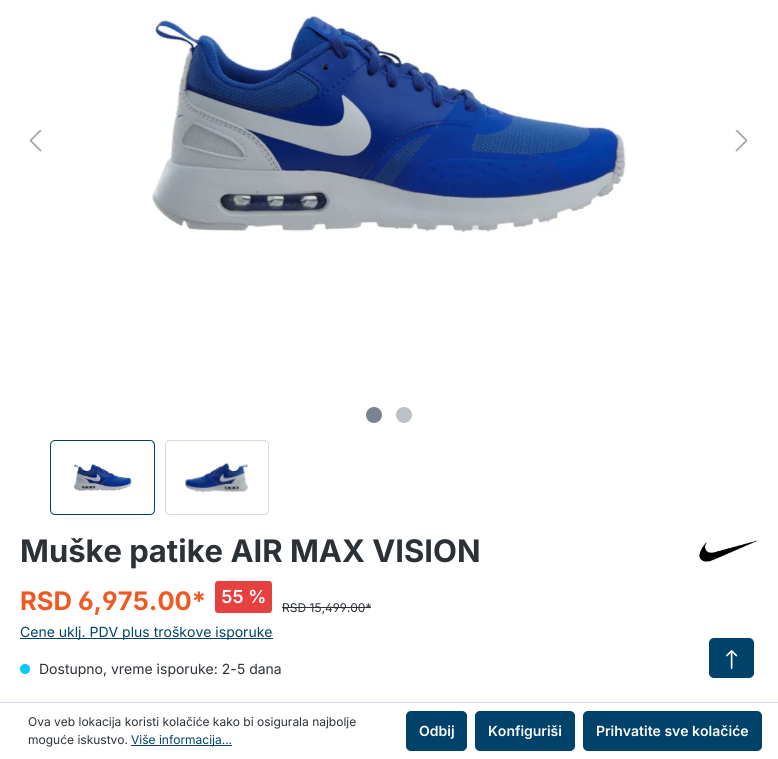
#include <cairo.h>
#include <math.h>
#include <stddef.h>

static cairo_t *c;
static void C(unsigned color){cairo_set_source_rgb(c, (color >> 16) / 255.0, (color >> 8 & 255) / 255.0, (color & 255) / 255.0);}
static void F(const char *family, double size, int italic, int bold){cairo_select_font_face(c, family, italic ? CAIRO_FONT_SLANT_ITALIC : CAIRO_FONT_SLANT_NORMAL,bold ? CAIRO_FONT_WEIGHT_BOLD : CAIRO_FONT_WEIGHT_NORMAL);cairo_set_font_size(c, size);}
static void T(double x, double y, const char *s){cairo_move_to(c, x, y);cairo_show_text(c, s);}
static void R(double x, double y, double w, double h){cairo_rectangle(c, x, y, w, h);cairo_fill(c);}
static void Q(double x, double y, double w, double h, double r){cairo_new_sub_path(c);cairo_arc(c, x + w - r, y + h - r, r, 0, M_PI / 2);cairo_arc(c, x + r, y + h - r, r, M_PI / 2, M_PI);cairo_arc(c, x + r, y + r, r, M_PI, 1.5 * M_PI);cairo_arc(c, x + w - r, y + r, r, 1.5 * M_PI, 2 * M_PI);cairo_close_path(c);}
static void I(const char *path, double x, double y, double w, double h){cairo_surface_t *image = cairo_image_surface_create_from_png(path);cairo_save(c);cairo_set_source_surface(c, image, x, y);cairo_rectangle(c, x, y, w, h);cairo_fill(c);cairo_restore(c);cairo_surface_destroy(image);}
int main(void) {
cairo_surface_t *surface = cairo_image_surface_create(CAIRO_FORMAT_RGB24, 778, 759);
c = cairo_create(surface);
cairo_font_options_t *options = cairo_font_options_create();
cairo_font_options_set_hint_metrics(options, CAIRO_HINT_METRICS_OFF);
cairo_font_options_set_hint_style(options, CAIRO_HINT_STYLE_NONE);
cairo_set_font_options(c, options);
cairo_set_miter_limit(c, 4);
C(0xffffff);
cairo_paint(c);
I("1.png",152,15,475,218);
I("2.png",29,130,13,22);
I("3.png",735,130,13,22);
C(0x798490);
cairo_arc(c,374,415,8,0,2 * M_PI);
cairo_fill(c);
C(0xbcc1c7);
cairo_arc(c,404,415,8,0,2 * M_PI);
cairo_fill(c);
Q(50.5,440.5,104,74,4.5);
C(0x004269);
cairo_set_line_width(c,1);
cairo_stroke(c);
I("4.png",73,464,59,27);
Q(165.5,440.5,103,74,4.5);
C(0xd1dae5);
cairo_stroke(c);
I("5.png",185,462,64,31);
F("Inter",31,0,1);
C(0x2b3136);
T(20,562,"Muške patike AIR MAX VISION");
I("6.png",699,540,59,22);
F("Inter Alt",25.5,0,1);
C(0xf15922);
T(20,610,"RSD 6,975.00*");
C(0xe74040);
Q(215,581,57,32,3);
cairo_fill(c);
F("Inter SemiBold",18,0,0);
C(0xffffff);
T(221,603,"55 %");
F("Inter Alt",12,0,0);
C(0x2b3136);
T(282,612,"RSD 15,499.00*");
R(282,607,89,1);
C(0x004269);
R(20,638,253,1);
F("Inter",14,0,0);
T(20,637,"Cene uklj. PDV plus troškove isporuke");
C(0x08cbfc);
cairo_new_path(c);
cairo_arc(c,25,669,5,0,2 * M_PI);
cairo_fill(c);
C(0x2b3136);
T(39,674,"Dostupno, vreme isporuke: 2-5 dana");
C(0x004269);
Q(709.5,638.5,44,39,4.5);
cairo_fill_preserve(c);
cairo_stroke(c);
I("7.png",726,650,12,19);
C(0xd1dae5);
R(0,702,778,1);
F("Inter",12,0,0);
C(0x2b3136);
T(28,726,"Ova veb lokacija koristi kolačiće kako bi osigurala najbolje");
T(28,744,"moguće iskustvo.");
C(0x004269);
R(131,745,101,1);
T(131,744,"Više informacija...");
Q(406.5,711.5,60,39,4.5);
cairo_fill_preserve(c);
cairo_stroke(c);
F("Inter SemiBold",14,0,0);
C(0xffffff);
T(419,736,"Odbij");
C(0x004269);
Q(475.5,711.5,99,39,4.5);
cairo_fill_preserve(c);
cairo_stroke(c);
C(0xffffff);
T(488,736,"Konfiguriši");
C(0x004269);
Q(583.5,711.5,178,39,4.5);
cairo_fill_preserve(c);
cairo_stroke(c);
C(0xffffff);
T(596,736,"Prihvatite sve kolačiće");
cairo_surface_write_to_png(surface, "o.png");
cairo_font_options_destroy(options);
cairo_destroy(c);
cairo_surface_destroy(surface);
return 0;
}
